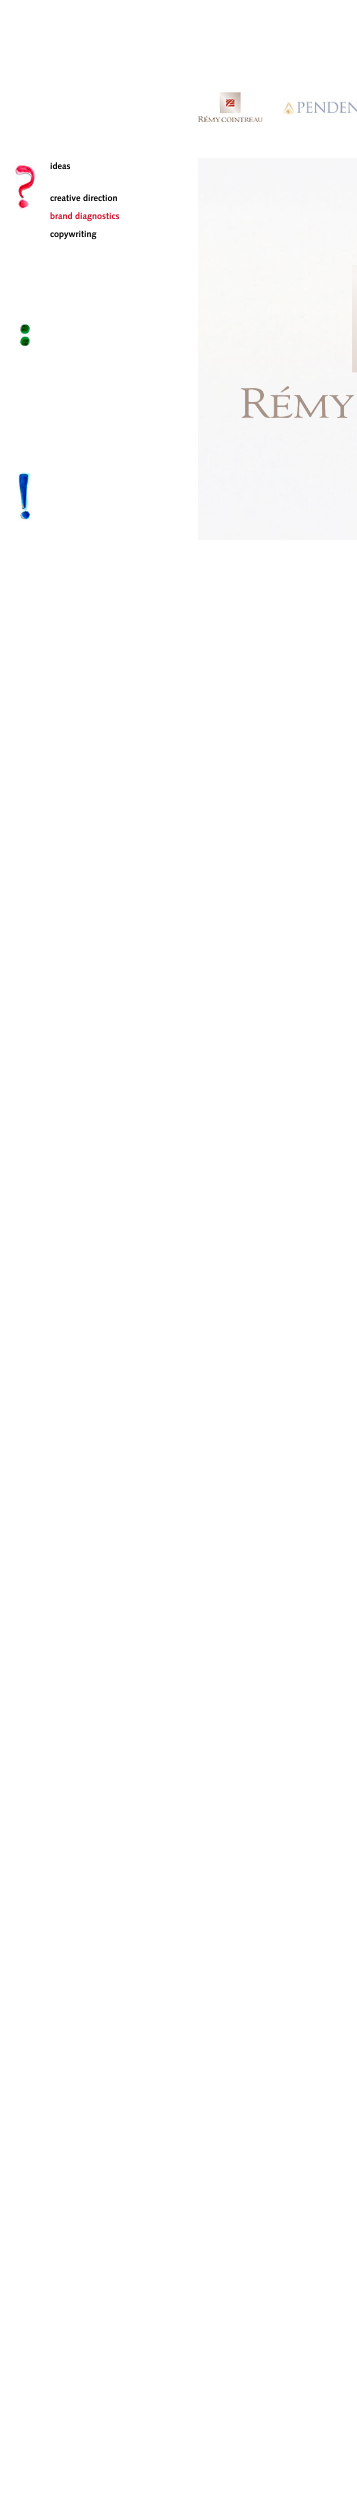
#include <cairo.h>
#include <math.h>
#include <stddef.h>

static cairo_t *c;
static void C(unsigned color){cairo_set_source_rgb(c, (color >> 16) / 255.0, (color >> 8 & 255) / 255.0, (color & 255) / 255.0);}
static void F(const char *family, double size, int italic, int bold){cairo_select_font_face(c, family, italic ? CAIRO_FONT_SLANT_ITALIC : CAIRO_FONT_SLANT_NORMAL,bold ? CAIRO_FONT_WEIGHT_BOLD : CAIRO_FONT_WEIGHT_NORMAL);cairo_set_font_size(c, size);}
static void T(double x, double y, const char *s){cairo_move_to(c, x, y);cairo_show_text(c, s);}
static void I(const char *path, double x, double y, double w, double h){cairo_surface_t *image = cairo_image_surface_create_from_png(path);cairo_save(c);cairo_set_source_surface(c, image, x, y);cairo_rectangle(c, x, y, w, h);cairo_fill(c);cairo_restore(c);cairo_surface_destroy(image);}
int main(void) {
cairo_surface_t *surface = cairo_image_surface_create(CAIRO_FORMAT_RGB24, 357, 2499);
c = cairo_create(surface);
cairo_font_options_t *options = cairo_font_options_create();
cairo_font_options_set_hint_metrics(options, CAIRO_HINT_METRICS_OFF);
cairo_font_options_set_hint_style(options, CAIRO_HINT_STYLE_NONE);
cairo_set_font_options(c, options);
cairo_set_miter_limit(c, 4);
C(0xffffff);
cairo_paint(c);
I("1.png",198,92,65,30);
I("2.png",283,98,74,18);
I("3.png",13,163,24,48);
F("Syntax",9,0,1);
C(0x000000);
T(50,169,"ideas");
T(50,201,"creative direction");
C(0xce0925);
T(50,219,"brand diagnostics");
C(0x000000);
T(50,237,"copywriting");
I("4.png",18,323,13,24);
I("5.png",17,472,15,49);
I("6.png",198,158,159,382);
cairo_surface_write_to_png(surface, "o.png");
cairo_font_options_destroy(options);
cairo_destroy(c);
cairo_surface_destroy(surface);
return 0;
}
